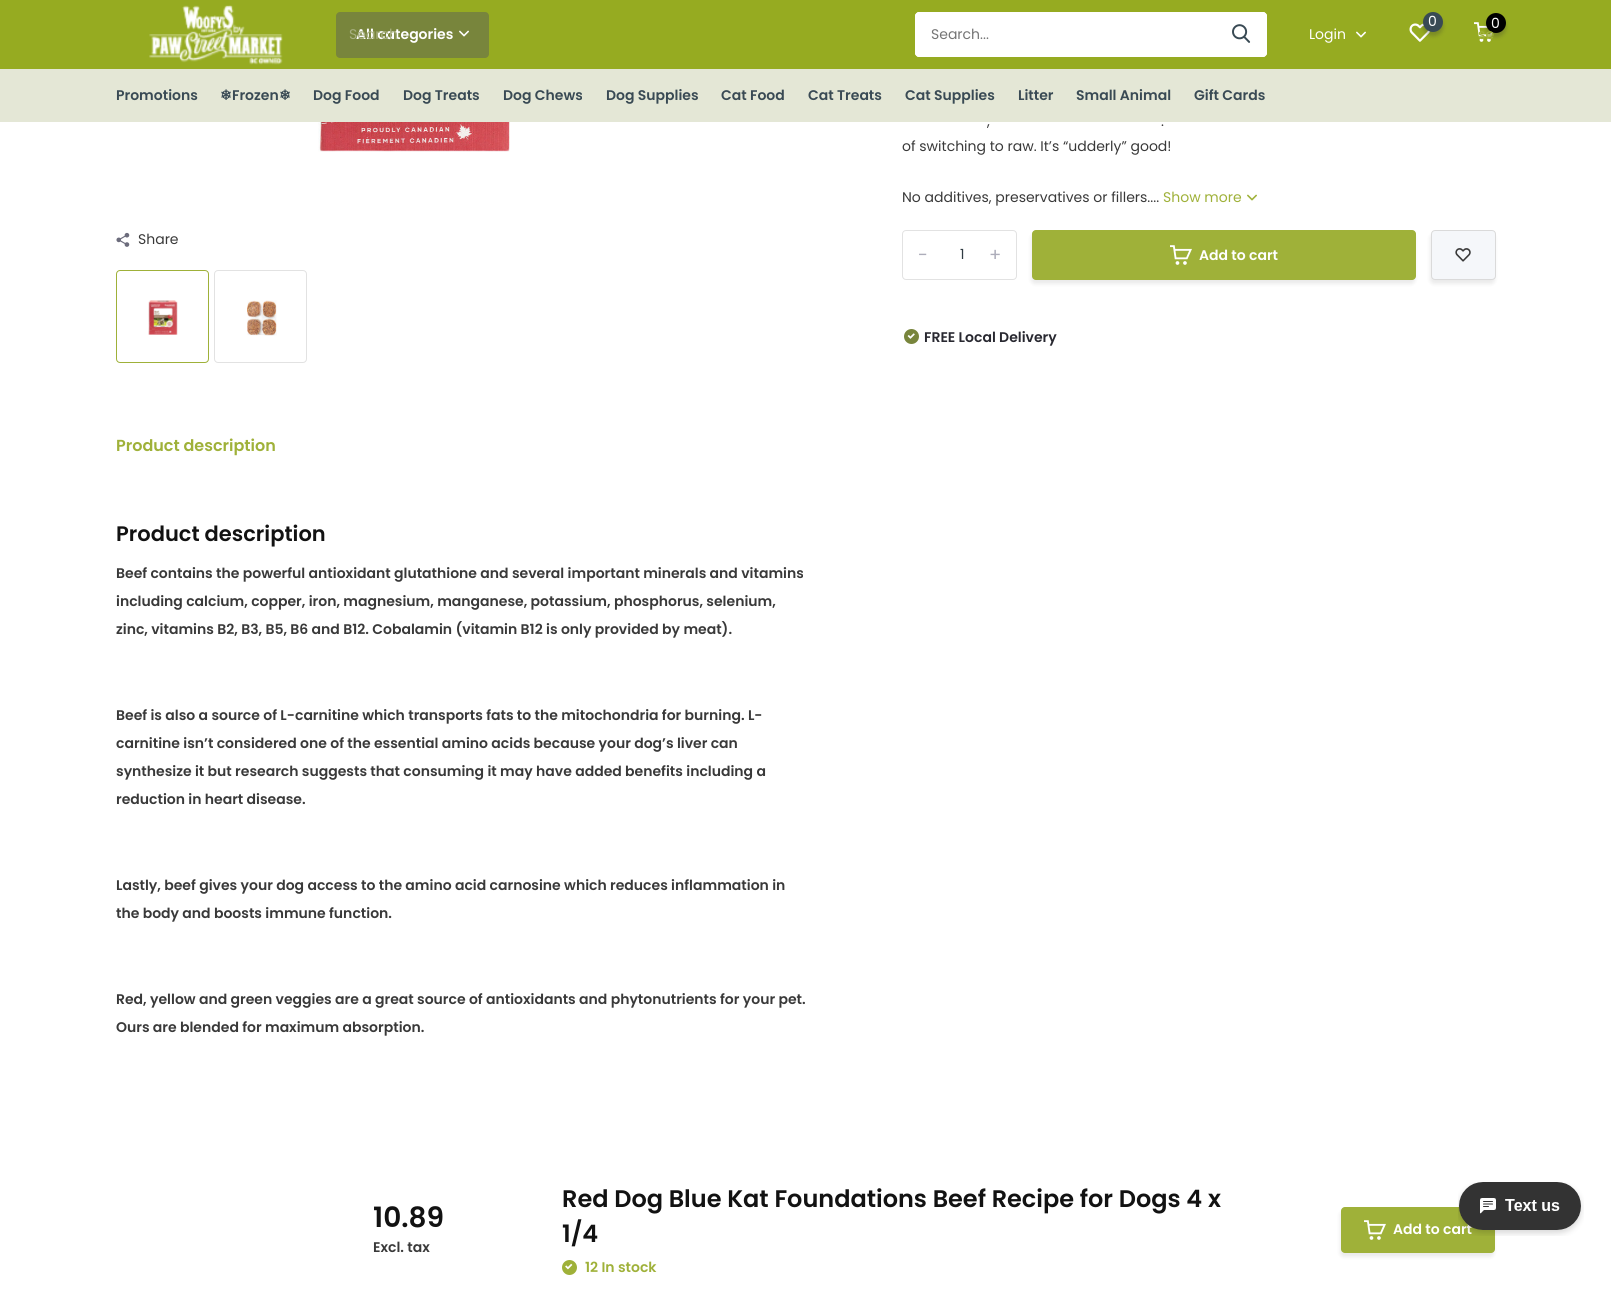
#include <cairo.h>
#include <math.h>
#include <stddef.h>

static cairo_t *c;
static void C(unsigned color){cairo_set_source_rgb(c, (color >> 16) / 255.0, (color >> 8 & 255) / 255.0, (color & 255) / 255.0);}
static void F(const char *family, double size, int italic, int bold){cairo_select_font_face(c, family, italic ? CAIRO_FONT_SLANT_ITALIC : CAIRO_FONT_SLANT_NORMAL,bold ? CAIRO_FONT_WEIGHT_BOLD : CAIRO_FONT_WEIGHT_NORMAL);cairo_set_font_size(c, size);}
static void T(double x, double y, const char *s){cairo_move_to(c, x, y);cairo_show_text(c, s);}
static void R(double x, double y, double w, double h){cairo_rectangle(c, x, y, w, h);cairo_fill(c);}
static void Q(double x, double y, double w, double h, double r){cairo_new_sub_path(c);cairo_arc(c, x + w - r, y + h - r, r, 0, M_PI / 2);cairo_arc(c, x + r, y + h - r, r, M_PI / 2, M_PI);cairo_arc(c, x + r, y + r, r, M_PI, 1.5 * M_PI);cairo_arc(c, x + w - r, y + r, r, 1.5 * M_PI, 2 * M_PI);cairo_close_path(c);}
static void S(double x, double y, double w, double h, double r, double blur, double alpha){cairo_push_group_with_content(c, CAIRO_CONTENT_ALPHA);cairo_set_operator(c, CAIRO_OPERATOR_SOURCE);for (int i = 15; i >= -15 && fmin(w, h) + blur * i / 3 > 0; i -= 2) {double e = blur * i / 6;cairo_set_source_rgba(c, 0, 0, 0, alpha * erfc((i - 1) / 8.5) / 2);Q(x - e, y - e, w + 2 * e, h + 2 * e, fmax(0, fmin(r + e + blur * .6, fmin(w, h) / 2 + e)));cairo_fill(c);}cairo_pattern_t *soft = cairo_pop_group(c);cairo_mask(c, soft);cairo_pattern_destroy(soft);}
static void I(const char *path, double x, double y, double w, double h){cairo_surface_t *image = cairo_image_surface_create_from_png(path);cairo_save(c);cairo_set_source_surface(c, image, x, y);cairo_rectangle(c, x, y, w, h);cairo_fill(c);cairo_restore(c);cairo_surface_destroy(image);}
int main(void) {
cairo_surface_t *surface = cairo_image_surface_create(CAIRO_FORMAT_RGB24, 1611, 1300);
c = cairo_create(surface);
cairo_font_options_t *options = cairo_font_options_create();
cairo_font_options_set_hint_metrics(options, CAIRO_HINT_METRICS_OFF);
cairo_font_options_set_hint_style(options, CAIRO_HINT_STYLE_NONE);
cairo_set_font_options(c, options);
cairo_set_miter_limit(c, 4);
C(0xffffff);
cairo_paint(c);
C(0x96ab21);
R(0,0,1611,69);
I("1.png",149,5,134,60);
C(0x78853c);
Q(336,12,153,46,4);
cairo_fill(c);
F("Poppins SemiBold",14,0,0);
C(0xffffff);
T(356,39,"All categories");
I("2.png",459,30,10,7);
I("3.png",1409,23,21,19);
C(0x282830);
S(1423,16,20,20,10,2,.25);
C(0x394a54);
cairo_arc(c,1433,22,10,0,2 * M_PI);
cairo_fill(c);
F("Poppins",14,0,0);
C(0xffffff);
T(1428,26,"0");
I("4.png",1474,22,20,20);
C(0x282830);
S(1486,17,20,20,10,2,.25);
C(0x000000);
cairo_arc(c,1496,23,10,0,2 * M_PI);
cairo_fill(c);
C(0xffffff);
T(1491,28,"0");
cairo_new_path(c);
cairo_move_to(c,919,12);
cairo_line_to(c,1217,12);
cairo_line_to(c,1217,57);
cairo_line_to(c,919,57);
cairo_curve_to(c,917,57,915,55,915,53);
cairo_line_to(c,915,16);
cairo_curve_to(c,915,14,917,12,919,12);
cairo_close_path(c);
cairo_fill(c);
cairo_set_fill_rule(c,CAIRO_FILL_RULE_EVEN_ODD);
cairo_new_path(c);
cairo_move_to(c,919,12);
cairo_line_to(c,1217,12);
cairo_line_to(c,1217,57);
cairo_line_to(c,919,57);
cairo_curve_to(c,917,57,915,55,915,53);
cairo_line_to(c,915,16);
cairo_curve_to(c,915,14,917,12,919,12);
cairo_close_path(c);
cairo_move_to(c,919,13);
cairo_line_to(c,1217,13);
cairo_line_to(c,1217,56);
cairo_line_to(c,919,56);
cairo_curve_to(c,917,56,916,55,916,53);
cairo_line_to(c,916,16);
cairo_curve_to(c,916,14,917,13,919,13);
cairo_close_path(c);
cairo_fill(c);
C(0x757575);
T(931,39,"Search...");
C(0xffffff);
cairo_new_path(c);
cairo_move_to(c,1217,12);
cairo_line_to(c,1263,12);
cairo_curve_to(c,1265,12,1267,14,1267,16);
cairo_line_to(c,1267,53);
cairo_curve_to(c,1267,55,1265,57,1263,57);
cairo_line_to(c,1217,57);
cairo_close_path(c);
cairo_fill(c);
cairo_new_path(c);
cairo_move_to(c,1217,12);
cairo_line_to(c,1263,12);
cairo_curve_to(c,1265,12,1267,14,1267,16);
cairo_line_to(c,1267,53);
cairo_curve_to(c,1267,55,1265,57,1263,57);
cairo_line_to(c,1217,57);
cairo_close_path(c);
cairo_move_to(c,1217,13);
cairo_line_to(c,1263,13);
cairo_curve_to(c,1265,13,1266,14,1266,16);
cairo_line_to(c,1266,53);
cairo_curve_to(c,1266,55,1265,56,1263,56);
cairo_line_to(c,1217,56);
cairo_close_path(c);
cairo_fill(c);
I("5.png",1232,24,19,19);
T(1309,39,"Login");
I("6.png",1356,31,10,7);
C(0xa7af80);
T(349,39,"Search");
F("Poppins Medium",14,0,0);
C(0x9fb139);
T(1478,39,"se");
C(0xe4e7d6);
R(0,69,1611,53);
F("Poppins SemiBold",14,0,0);
C(0x394a54);
T(116,100,"Promotions");
F("DejaVu Sans",14,0,1);
T(220,100,"❄");
F("Poppins SemiBold",14,0,0);
T(232,100,"Frozen");
F("DejaVu Sans",14,0,1);
T(279,100,"❄");
F("Poppins SemiBold",14,0,0);
T(313,100,"Dog Food");
T(403,100,"Dog Treats");
T(503,100,"Dog Chews");
T(606,100,"Dog Supplies");
T(721,100,"Cat Food");
T(808,100,"Cat Treats");
T(905,100,"Cat Supplies");
T(1018,100,"Litter");
T(1076,100,"Small Animal");
T(1194,100,"Gift Cards");
I("7.png",318,122,192,30);
I("8.png",116,232,14,15);
F("Poppins",14,0,0);
C(0x393939);
T(138,244,"Share");
Q(116.5,270.5,92,92,3.5);
C(0x9fb139);
cairo_set_line_width(c,1);
cairo_stroke(c);
I("9.png",148,300,30,35);
Q(214.5,270.5,92,92,3.5);
C(0xe2e2e2);
cairo_stroke(c);
I("10.png",247,300,30,36);
C(0x393939);
T(987,126,",");
T(1161,126,".");
T(902,151,"of switching to raw. It’s “udderly” good!");
T(902,202,"No additives, preservatives or fillers....");
C(0x9fb139);
T(1163,202,"Show more");
I("11.png",1247,194,10,7);
Q(902.5,230.5,114,49,3.5);
C(0xe2e2e2);
cairo_stroke(c);
C(0x303c43);
T(960,259,"1");
F("Poppins",18,0,0);
C(0xadadba);
T(918,261,"-");
T(989,261,"+");
C(0x000000);
S(1031,234,384,50,4,2,.08);
C(0x9fb139);
Q(1032,230,384,50,4);
cairo_fill(c);
I("12.png",1170,245,22,20);
F("Poppins SemiBold",14,0,0);
C(0xffffff);
T(1199,260,"Add to cart");
C(0x000000);
S(1430,234,65,50,4,2,.08);
C(0xf5f7fa);
Q(1431.5,230.5,64,49,3.5);
cairo_fill_preserve(c);
C(0xdadada);
cairo_stroke(c);
I("13.png",1455,248,16,14);
C(0x78853c);
cairo_arc(c,911.5,336.5,7.5,0,2 * M_PI);
cairo_fill(c);
I("14.png",907,333,8,6);
C(0x282830);
T(924,342,"FREE Local Delivery");
F("Poppins SemiBold",16,0,0);
C(0x9fb139);
T(116,451,"Product description");
F("Poppins SemiBold",21,0,0);
C(0x121212);
T(116,541,"Product description");
F("Poppins SemiBold",14,0,0);
C(0x393939);
T(116,578,"Beef contains the powerful antioxidant glutathione and several important minerals and vitamins");
T(116,606,"including calcium, copper, iron, magnesium, manganese, potassium, phosphorus, selenium,");
T(116,634,"zinc, vitamins B2, B3, B5, B6 and B12. Cobalamin (vitamin B12 is only provided by meat).");
T(116,720,"Beef is also a source of L-carnitine which transports fats to the mitochondria for burning. L-");
T(116,748,"carnitine isn’t considered one of the essential amino acids because your dog’s liver can");
T(116,776,"synthesize it but research suggests that consuming it may have added benefits including a");
T(116,804,"reduction in heart disease.");
T(116,890,"Lastly, beef gives your dog access to the amino acid carnosine which reduces inflammation in");
T(116,918,"the body and boosts immune function.");
T(116,1004,"Red, yellow and green veggies are a great source of antioxidants and phytonutrients for your pet.");
T(116,1032,"Ours are blended for maximum absorption.");
F("Poppins SemiBold",28,0,0);
C(0x121212);
T(373,1227,"10.89");
F("Poppins SemiBold",14,0,0);
C(0x393939);
T(373,1252,"Excl. tax");
F("Poppins SemiBold",24,0,0);
C(0x121212);
T(562,1207,"Red Dog Blue Kat Foundations Beef Recipe for Dogs 4 x");
T(562,1242,"1/4");
C(0x9fb139);
cairo_new_path(c);
cairo_arc(c,569.5,1267.5,7.5,0,2 * M_PI);
cairo_fill(c);
I("15.png",565,1263,8,7);
F("Poppins SemiBold",14,0,0);
T(585,1272,"12 In stock");
C(0x000000);
S(1340,1211,154,46,4,2,.08);
C(0x9fb139);
Q(1341,1207,154,46,4);
cairo_fill(c);
I("12.png",1364,1220,22,20);
C(0xffffff);
T(1393,1234,"Add to cart");
I("16.png",1458,1182,126,54);
cairo_surface_write_to_png(surface, "o.png");
cairo_font_options_destroy(options);
cairo_destroy(c);
cairo_surface_destroy(surface);
return 0;
}
